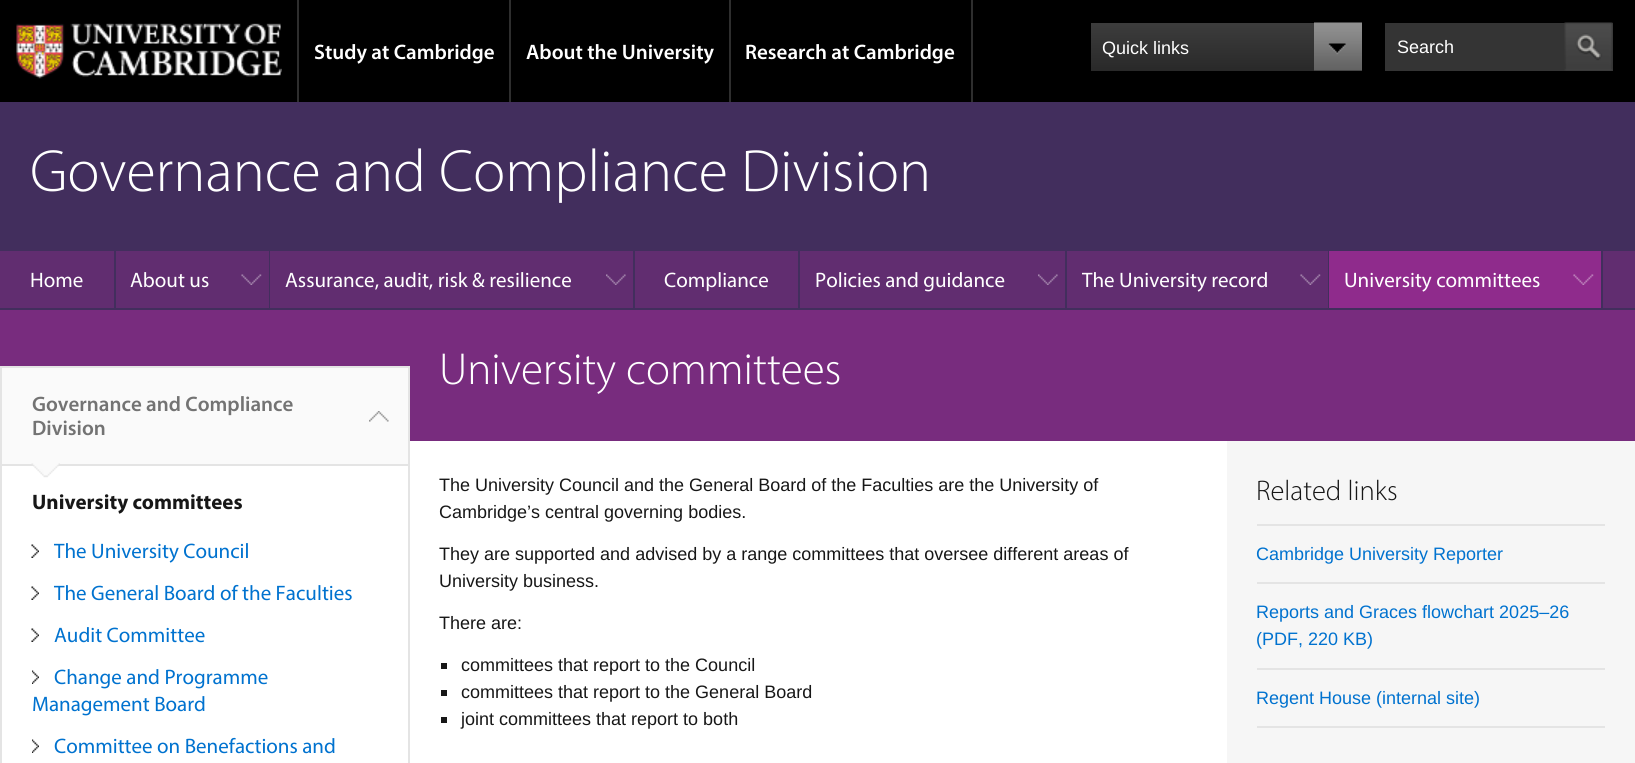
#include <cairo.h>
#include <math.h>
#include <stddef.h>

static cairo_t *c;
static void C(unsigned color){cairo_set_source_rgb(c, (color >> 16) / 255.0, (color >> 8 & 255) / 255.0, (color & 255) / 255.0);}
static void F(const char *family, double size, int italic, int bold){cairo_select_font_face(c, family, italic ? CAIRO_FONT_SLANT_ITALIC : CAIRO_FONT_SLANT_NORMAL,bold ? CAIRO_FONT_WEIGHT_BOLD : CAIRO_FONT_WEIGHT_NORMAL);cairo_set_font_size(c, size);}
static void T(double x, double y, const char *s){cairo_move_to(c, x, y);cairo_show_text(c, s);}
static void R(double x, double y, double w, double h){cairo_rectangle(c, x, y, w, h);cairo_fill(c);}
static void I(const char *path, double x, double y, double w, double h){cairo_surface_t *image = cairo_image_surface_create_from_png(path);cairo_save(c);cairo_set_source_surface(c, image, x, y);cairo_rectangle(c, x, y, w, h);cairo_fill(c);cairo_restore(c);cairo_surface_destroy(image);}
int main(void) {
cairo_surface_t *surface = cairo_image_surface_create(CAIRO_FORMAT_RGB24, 1635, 763);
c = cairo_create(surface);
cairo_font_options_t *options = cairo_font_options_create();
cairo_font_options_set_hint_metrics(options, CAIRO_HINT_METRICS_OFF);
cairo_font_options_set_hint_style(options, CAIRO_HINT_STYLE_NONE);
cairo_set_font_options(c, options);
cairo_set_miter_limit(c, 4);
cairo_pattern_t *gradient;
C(0x000000);
cairo_paint(c);
I("1.png",16,23,266,56);
C(0x2e2e2e);
R(297,0,2,102);
R(509,0,2,102);
F("Myriad SemiBold",21,0,0);
C(0xffffff);
T(314,59,"Study at Cambridge");
C(0x2e2e2e);
R(729,0,2,102);
C(0xffffff);
T(526,59,"About the University");
C(0x2e2e2e);
R(971,0,2,102);
C(0xffffff);
T(745,59,"Research at Cambridge");
gradient = cairo_pattern_create_linear(1226,22,1226,71);
cairo_pattern_add_color_stop_rgba(gradient,0,0.239,0.239,0.239,1);
cairo_pattern_add_color_stop_rgba(gradient,1,0.161,0.161,0.161,1);
cairo_set_source(c,gradient);
cairo_pattern_destroy(gradient);
R(1091,23,271,48);
F("Liberation Sans",18,0,0);
C(0xffffff);
T(1102,54,"Quick links");
I("2.png",1314,22,48,49);
C(0x343434);
R(1385,23,228,48);
C(0xffffff);
T(1397,53,"Search");
I("3.png",1564,22,49,49);
C(0x422e5d);
R(0,102,1635,147);
F("Myriad Light",60,0,0);
C(0xffffff);
T(30,191,"Governance and Compliance Division");
C(0x612d70);
R(1603,251,32,57);
C(0x422e5d);
R(1603,249,32,2);
R(1602,308,33,2);
C(0x612d70);
R(0,251,114,57);
C(0x422e5d);
R(0,249,270,2);
R(114,249,2,60);
R(0,308,116,2);
F("Myriad",21,0,0);
C(0xffffff);
T(30,287,"Home");
C(0x612d70);
R(116,251,153,57);
I("4.png",241,274,21,11);
C(0x422e5d);
R(269,249,1,60);
R(116,308,154,2);
C(0xffffff);
T(130,287,"About us");
C(0x612d70);
R(270,251,363,57);
I("5.png",606,274,20,11);
C(0x422e5d);
R(270,249,1332,2);
R(633,249,2,60);
R(270,308,365,2);
C(0xffffff);
T(285,287,"Assurance, audit, risk & resilience");
C(0x612d70);
R(635,251,163,57);
C(0x422e5d);
R(798,249,2,60);
R(635,308,165,2);
C(0xffffff);
T(664,287,"Compliance");
C(0x612d70);
R(800,251,265,57);
I("6.png",1038,274,20,11);
C(0x422e5d);
R(1065,249,2,60);
R(800,308,267,2);
C(0xffffff);
T(815,287,"Policies and guidance");
C(0x612d70);
R(1067,251,261,57);
I("7.png",1300,274,21,11);
C(0x422e5d);
R(1328,249,1,60);
R(1067,308,262,2);
C(0xffffff);
T(1082,287,"The University record");
C(0x8f2b8c);
R(1329,251,272,57);
I("8.png",1573,274,21,11);
C(0x422e5d);
R(1601,249,2,60);
R(1329,308,273,2);
C(0xffffff);
T(1344,287,"University committees");
C(0x782c7e);
R(0,310,1635,131);
F("Myriad Light",45,0,0);
C(0xffffff);
T(439,384,"University committees");
R(410,441,817,322);
C(0xe4e4e4);
R(0,366,410,2);
R(408,366,2,397);
R(0,366,2,397);
C(0xffffff);
R(2,466,406,297);
C(0xfafafa);
R(2,368,406,96);
I("9.png",369,411,20,11);
C(0xe4e4e4);
R(2,464,406,2);
F("Myriad SemiBold",21,0,0);
C(0x737373);
T(32,411,"Governance and Compliance");
T(32,435,"Division");
I("10.png",31,463,29,15);
F("Myriad",21,0,1);
C(0x171717);
T(32,509,"University committees");
I("11.png",31,544,8,14);
F("Myriad",21,0,0);
C(0x0072cf);
T(54,558,"The University Council");
I("11.png",31,586,8,14);
T(54,600,"The General Board of the Faculties");
I("11.png",31,628,8,14);
T(54,642,"Audit Committee");
I("12.png",32,670,7,14);
T(54,684,"Change and Programme");
T(32,711,"Management Board");
I("12.png",32,739,7,14);
T(54,753,"Committee on Benefactions and");
F("Liberation Sans",18,0,0);
C(0x171717);
T(439,491,"The University Council and the General Board of the Faculties are the University of");
T(439,518,"Cambridge’s central governing bodies.");
T(439,560,"They are supported and advised by a range committees that oversee different areas of");
T(439,587,"University business.");
T(439,629,"There are:");
R(441,663,6,6);
T(461,671,"committees that report to the Council");
R(441,690,6,6);
T(461,698,"committees that report to the General Board");
R(441,717,6,6);
T(461,725,"joint committees that report to both");
C(0xf6f6f6);
R(1227,441,408,322);
C(0xe4e4e4);
R(1257,524,348,2);
F("Myriad Light",28.5,0,0);
C(0x171717);
T(1256,500,"Related links");
C(0xe4e4e4);
R(1257,582,348,2);
F("Liberation Sans",18,0,0);
C(0x0072cf);
T(1256,560,"Cambridge University Reporter");
C(0xe4e4e4);
R(1257,668,348,2);
C(0x0072cf);
T(1256,618,"Reports and Graces flowchart 2025–26");
T(1256,645,"(PDF, 220 KB)");
C(0xe4e4e4);
R(1257,726,348,2);
C(0x0072cf);
T(1256,704,"Regent House (internal site)");
cairo_surface_write_to_png(surface, "o.png");
cairo_font_options_destroy(options);
cairo_destroy(c);
cairo_surface_destroy(surface);
return 0;
}
